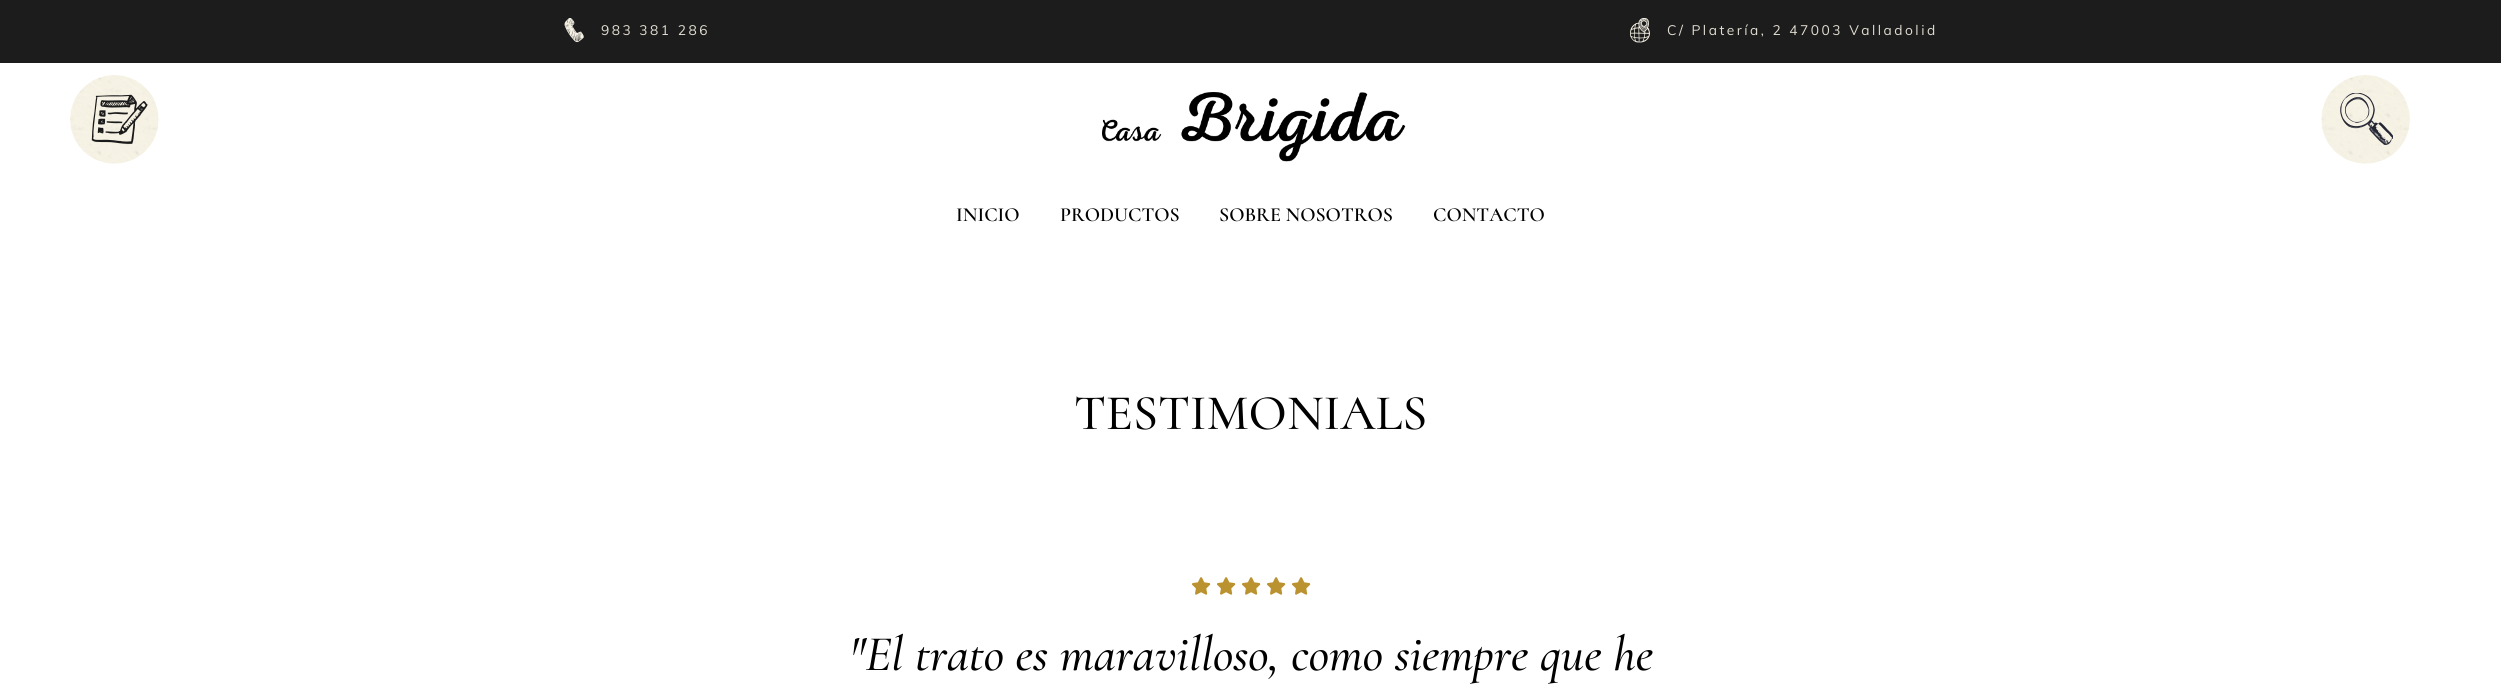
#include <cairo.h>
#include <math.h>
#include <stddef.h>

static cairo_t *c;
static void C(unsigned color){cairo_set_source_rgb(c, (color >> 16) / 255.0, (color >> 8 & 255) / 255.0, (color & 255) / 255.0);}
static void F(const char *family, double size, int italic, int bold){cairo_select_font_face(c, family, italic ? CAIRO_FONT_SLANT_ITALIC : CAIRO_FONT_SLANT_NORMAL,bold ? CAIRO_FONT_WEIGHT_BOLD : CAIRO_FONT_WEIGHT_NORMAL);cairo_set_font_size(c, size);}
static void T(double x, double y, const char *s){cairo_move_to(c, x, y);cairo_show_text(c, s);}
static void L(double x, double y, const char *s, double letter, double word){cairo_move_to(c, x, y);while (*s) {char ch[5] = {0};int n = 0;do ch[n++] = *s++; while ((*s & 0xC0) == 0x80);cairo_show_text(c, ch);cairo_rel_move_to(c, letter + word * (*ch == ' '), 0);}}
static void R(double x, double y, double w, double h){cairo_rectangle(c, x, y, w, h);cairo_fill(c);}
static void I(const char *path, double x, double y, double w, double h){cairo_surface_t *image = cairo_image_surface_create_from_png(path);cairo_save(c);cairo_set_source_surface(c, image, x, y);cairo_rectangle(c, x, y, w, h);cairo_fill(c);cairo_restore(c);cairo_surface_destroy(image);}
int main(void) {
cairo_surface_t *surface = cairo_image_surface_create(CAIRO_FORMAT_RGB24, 2501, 700);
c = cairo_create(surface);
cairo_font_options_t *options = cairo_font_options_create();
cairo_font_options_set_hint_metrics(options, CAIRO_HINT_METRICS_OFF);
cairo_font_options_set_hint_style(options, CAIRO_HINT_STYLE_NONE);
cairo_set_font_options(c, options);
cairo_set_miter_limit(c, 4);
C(0xffffff);
cairo_paint(c);
C(0x1d1c1c);
R(0,0,2501,63);
I("1.png",564,18,20,25);
F("Muli",13.75,0,0);
C(0xe0dcd0);
L(601,35,"983 381 286",2.5,0);
I("2.png",1630,18,20,25);
L(1667,35,"C/ Platería, 2 47003 Valladolid",2.5,0);
I("3.png",70,75,89,89);
I("4.png",91,94,57,50);
I("5.png",1102,92,304,70);
I("6.png",2321,75,89,89);
I("7.png",2340,93,53,52);
F("Cormorant SemiBold",20,0,0);
C(0x000000);
T(956,221,"INICIO");
T(1060,221,"PRODUCTOS");
T(1219,221,"SOBRE NOSOTROS");
T(1433,221,"CONTACTO");
F("Cormorant Medium",50,0,0);
T(1074,429,"TESTIMONIALS");
I("8.png",1192,577,19,18);
I("8.png",1217,577,19,18);
I("8.png",1242,577,19,18);
I("8.png",1267,577,19,18);
I("8.png",1292,577,19,18);
F("Cormorant Light",50,1,0);
T(849,670,"\"El trato es maravilloso, como siempre que he");
cairo_surface_write_to_png(surface, "o.png");
cairo_font_options_destroy(options);
cairo_destroy(c);
cairo_surface_destroy(surface);
return 0;
}
